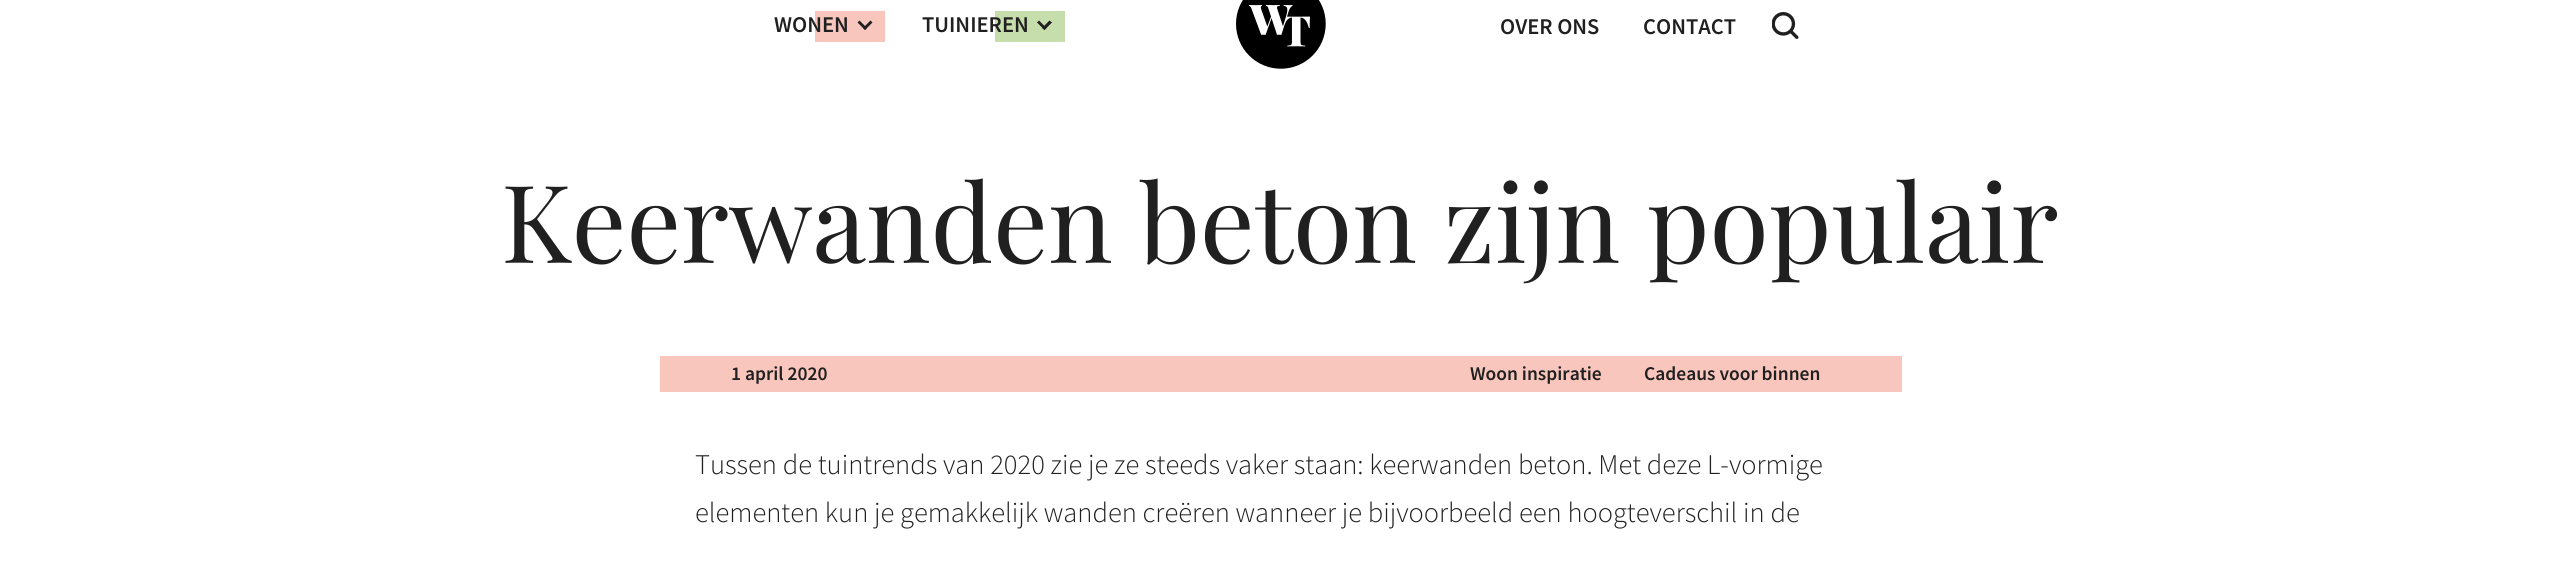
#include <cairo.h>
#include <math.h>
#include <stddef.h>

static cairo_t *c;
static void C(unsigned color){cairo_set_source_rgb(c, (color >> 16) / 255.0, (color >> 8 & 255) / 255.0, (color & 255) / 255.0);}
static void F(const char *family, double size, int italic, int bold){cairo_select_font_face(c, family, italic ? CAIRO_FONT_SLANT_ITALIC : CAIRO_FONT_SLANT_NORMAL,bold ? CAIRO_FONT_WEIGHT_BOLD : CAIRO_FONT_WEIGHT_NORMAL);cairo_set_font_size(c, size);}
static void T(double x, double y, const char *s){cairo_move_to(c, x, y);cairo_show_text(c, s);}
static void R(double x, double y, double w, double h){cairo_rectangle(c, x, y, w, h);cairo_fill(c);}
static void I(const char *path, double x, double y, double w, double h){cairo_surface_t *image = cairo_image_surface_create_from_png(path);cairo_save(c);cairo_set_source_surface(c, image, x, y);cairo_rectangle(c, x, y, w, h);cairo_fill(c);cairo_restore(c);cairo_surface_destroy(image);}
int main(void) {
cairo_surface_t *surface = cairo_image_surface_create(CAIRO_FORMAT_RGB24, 2560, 563);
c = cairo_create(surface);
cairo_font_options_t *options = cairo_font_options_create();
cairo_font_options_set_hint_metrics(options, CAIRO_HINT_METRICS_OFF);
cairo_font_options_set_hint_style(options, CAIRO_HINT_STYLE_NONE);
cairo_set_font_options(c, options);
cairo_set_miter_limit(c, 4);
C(0xffffff);
cairo_paint(c);
C(0xf9c6bd);
R(815,11,70,31);
F("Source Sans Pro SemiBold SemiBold",22.5,0,0);
C(0x202020);
T(774,32,"WONEN");
cairo_new_path(c);
cairo_move_to(c,872.5,22.5);
cairo_line_to(c,865,30);
cairo_line_to(c,863,28);
cairo_line_to(c,870.5,20.5);
cairo_close_path(c);
cairo_fill(c);
cairo_new_path(c);
cairo_move_to(c,867,28);
cairo_line_to(c,865,30);
cairo_line_to(c,857.5,22.5);
cairo_line_to(c,859.5,20.5);
cairo_close_path(c);
cairo_fill(c);
C(0xc6ddac);
R(995,11,70,31);
C(0x202020);
T(922,32,"TUINIEREN");
cairo_new_path(c);
cairo_move_to(c,1052,22.5);
cairo_line_to(c,1044.5,30);
cairo_line_to(c,1042,28);
cairo_line_to(c,1049.5,20.5);
cairo_close_path(c);
cairo_fill(c);
cairo_new_path(c);
cairo_move_to(c,1046.5,28);
cairo_line_to(c,1044.5,30);
cairo_line_to(c,1037,22.5);
cairo_line_to(c,1039,20.5);
cairo_close_path(c);
cairo_fill(c);
I("1.png",1236,0,90,69);
T(1500,34,"OVER ONS");
T(1643,34,"CONTACT");
I("2.png",1772,12,27,27);
F("Playfair Display",108,0,0);
T(501,263,"Keerwanden beton zijn populair");
C(0xf9c6bd);
R(660,356,1242,36);
F("Source Sans Pro SemiBold SemiBold",19.5,0,0);
C(0x202020);
T(731,380,"1 april 2020");
T(1470,380,"Woon inspiratie");
T(1644,380,"Cadeaus voor binnen");
F("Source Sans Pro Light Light",28.5,0,0);
T(695,474,"Tussen de tuintrends van 2020 zie je ze steeds vaker staan: keerwanden beton. Met deze L-vormige");
T(695,522,"elementen kun je gemakkelijk wanden creëren wanneer je bijvoorbeeld een hoogteverschil in de");
cairo_surface_write_to_png(surface, "o.png");
cairo_font_options_destroy(options);
cairo_destroy(c);
cairo_surface_destroy(surface);
return 0;
}
